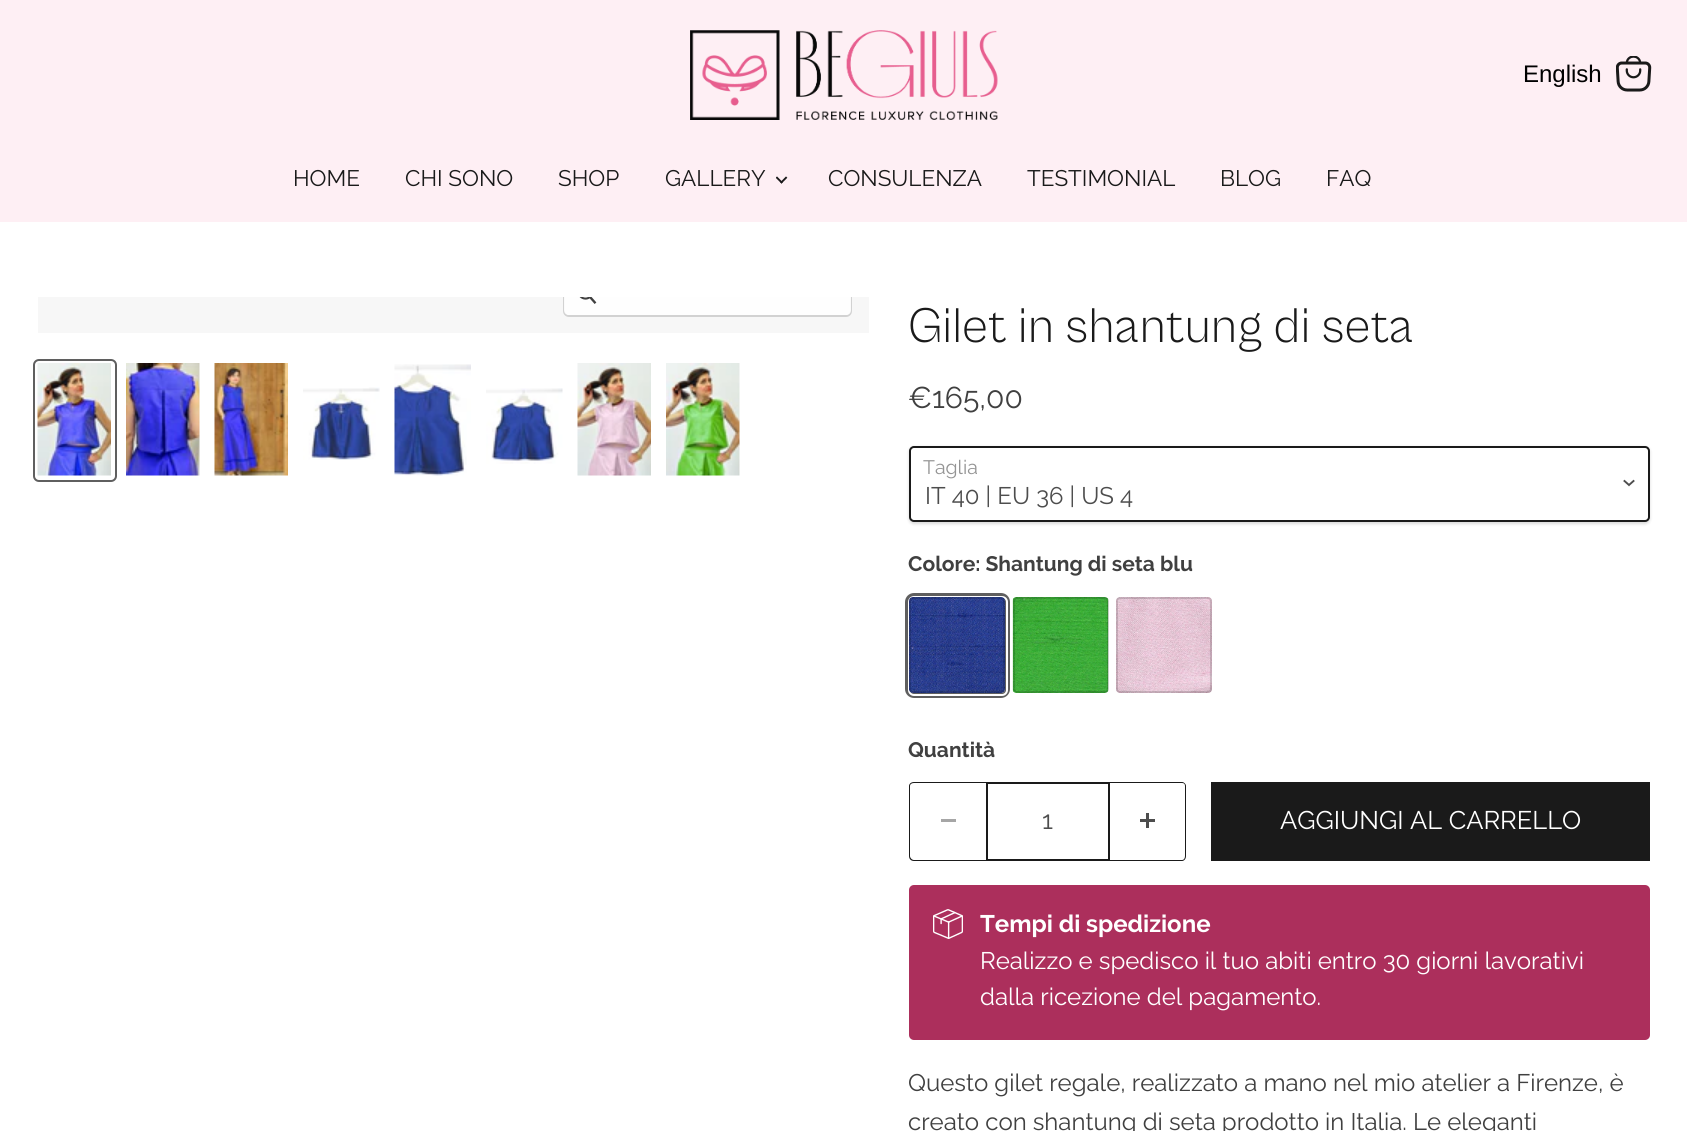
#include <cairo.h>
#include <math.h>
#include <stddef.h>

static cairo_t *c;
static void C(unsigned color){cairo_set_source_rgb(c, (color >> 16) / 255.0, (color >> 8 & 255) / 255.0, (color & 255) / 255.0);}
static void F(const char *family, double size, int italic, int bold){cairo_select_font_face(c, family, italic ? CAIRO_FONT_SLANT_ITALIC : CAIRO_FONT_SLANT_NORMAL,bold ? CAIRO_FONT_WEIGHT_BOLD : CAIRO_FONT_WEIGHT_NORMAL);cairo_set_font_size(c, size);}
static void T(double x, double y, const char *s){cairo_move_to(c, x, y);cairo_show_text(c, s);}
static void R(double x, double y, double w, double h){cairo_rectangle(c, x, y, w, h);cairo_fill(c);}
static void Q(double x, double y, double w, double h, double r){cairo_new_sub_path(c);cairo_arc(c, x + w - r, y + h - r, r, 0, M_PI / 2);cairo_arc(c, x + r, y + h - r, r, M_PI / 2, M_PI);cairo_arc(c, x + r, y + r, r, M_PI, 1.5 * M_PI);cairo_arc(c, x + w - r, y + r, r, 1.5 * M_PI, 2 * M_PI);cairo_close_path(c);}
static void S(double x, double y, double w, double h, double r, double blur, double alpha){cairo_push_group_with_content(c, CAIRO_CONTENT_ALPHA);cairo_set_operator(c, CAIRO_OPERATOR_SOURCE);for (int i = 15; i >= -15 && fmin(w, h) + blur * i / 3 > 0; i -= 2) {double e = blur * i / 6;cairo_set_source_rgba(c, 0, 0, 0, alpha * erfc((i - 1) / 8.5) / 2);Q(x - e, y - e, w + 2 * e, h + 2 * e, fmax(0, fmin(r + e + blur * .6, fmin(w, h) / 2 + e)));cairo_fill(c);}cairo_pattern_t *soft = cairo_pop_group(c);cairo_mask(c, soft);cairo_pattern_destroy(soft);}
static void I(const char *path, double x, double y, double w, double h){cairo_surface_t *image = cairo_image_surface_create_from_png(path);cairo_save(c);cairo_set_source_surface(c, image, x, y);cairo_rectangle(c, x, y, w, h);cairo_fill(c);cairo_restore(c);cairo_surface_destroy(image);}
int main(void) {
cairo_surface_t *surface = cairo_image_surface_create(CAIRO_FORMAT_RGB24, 1687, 1131);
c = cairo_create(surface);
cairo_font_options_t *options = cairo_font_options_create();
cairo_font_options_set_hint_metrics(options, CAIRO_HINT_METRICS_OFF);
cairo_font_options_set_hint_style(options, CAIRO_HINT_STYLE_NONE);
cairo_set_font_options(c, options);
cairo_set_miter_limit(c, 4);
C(0xffffff);
cairo_paint(c);
C(0xfeeff4);
R(0,0,1687,222);
I("1.png",690,30,308,90);
F("Liberation Sans",24,0,0);
C(0x000000);
T(1523,82,"English");
I("2.png",1616,56,36,36);
F("Raleway Thin",22.5,0,0);
C(0x1a1a1a);
T(293,186,"HOME");
T(405,186,"CHI SONO");
T(558,186,"SHOP");
T(665,186,"GALLERY");
I("3.png",776,176,12,8);
T(828,186,"CONSULENZA");
T(1027,186,"TESTIMONIAL");
T(1220,186,"BLOG");
T(1326,186,"FAQ");
C(0xf7f7f7);
R(38,297,831,36);
cairo_save(c);
cairo_rectangle(c,38,297,831,36);
cairo_clip(c);
Q(564,273,287,43,5);
C(0xd2d2d2);
cairo_stroke(c);
cairo_restore(c);
cairo_set_source_rgba(c,1,1,1,0.9);
cairo_new_path(c);
cairo_move_to(c,564,297);
cairo_line_to(c,851,297);
cairo_line_to(c,851,310);
cairo_curve_to(c,851,313,849,315,846,315);
cairo_line_to(c,569,315);
cairo_curve_to(c,566,315,564,313,564,310);
cairo_close_path(c);
cairo_fill(c);
I("4.png",579,297,18,7);
Q(34,360,82,121,5);
C(0x5f5f5f);
cairo_stroke(c);
I("5.png",37,363,74,113);
I("6.png",126,363,74,113);
I("7.png",214,363,74,113);
I("8.png",303,387,77,73);
I("9.png",394,364,77,112);
I("10.png",486,388,77,76);
I("11.png",577,363,74,113);
I("12.png",666,363,74,113);
F("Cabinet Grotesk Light",50.4,0,0);
C(0x1a1a1a);
T(908,342,"Gilet in shantung di seta");
F("Raleway Thin",30,0,0);
C(0x404040);
T(908,408,"€165,00");
C(0x000000);
S(909,447,741,77,5,1.5,.15);
C(0xffffff);
Q(910,447,739,74,4);
cairo_fill_preserve(c);
C(0x1a1a1a);
cairo_stroke(c);
F("Raleway Thin",19.5,0,0);
C(0x949494);
T(923,474,"Taglia");
cairo_new_path(c);
cairo_move_to(c,1629,485);
cairo_line_to(c,1633.5,481);
cairo_move_to(c,1629,485);
cairo_line_to(c,1624.5,481);
C(0x4d4d4d);
cairo_set_line_width(c,1.9);
cairo_set_line_cap(c,CAIRO_LINE_CAP_SQUARE);
cairo_stroke(c);
F("Raleway Thin",24,0,0);
T(925,504,"IT 40 | EU 36 | US 4");
F("Raleway",21,0,1);
C(0x404040);
T(908,571,"Colore: Shantung di seta blu");
Q(907.5,595.5,100,100,6.5);
C(0x5f5f5f);
cairo_set_line_width(c,5);
cairo_set_line_cap(c,CAIRO_LINE_CAP_BUTT);
cairo_stroke(c);
Q(909,597,98,98,5);
C(0xffffff);
cairo_set_line_width(c,2);
cairo_stroke(c);
I("13.png",909,597,96,96);
Q(910,598,94,94,3);
cairo_set_source_rgba(c,0,0,0,0.15);
cairo_stroke(c);
I("14.png",1012,597,97,96);
Q(1014,598,94,94,3);
cairo_stroke(c);
I("15.png",1116,597,96,96);
Q(1117,598,94,94,3);
cairo_stroke(c);
C(0x404040);
T(908,757,"Quantità");
C(0x1a1a1a);
cairo_set_fill_rule(c,CAIRO_FILL_RULE_EVEN_ODD);
cairo_new_path(c);
cairo_move_to(c,914,782);
cairo_line_to(c,986,782);
cairo_line_to(c,986,861);
cairo_line_to(c,914,861);
cairo_curve_to(c,911,861,909,859,909,856);
cairo_line_to(c,909,786);
cairo_curve_to(c,909,784,911,782,914,782);
cairo_close_path(c);
cairo_move_to(c,914,783);
cairo_line_to(c,986,783);
cairo_line_to(c,986,860);
cairo_line_to(c,914,860);
cairo_curve_to(c,912,860,910,858,910,856);
cairo_line_to(c,910,786);
cairo_curve_to(c,910,784,912,783,914,783);
cairo_close_path(c);
cairo_fill(c);
C(0xa6a6a6);
R(941,819,15,3);
cairo_rectangle(c,987,783,122,77);
C(0x1a1a1a);
cairo_stroke(c);
F("Raleway Thin",25.5,0,0);
C(0x4d4d4d);
T(1042,829,"1");
C(0x1a1a1a);
cairo_new_path(c);
cairo_move_to(c,1110,782);
cairo_line_to(c,1182,782);
cairo_curve_to(c,1184,782,1186,784,1186,786);
cairo_line_to(c,1186,856);
cairo_curve_to(c,1186,859,1184,861,1182,861);
cairo_line_to(c,1110,861);
cairo_close_path(c);
cairo_move_to(c,1110,783);
cairo_line_to(c,1182,783);
cairo_curve_to(c,1184,783,1185,784,1185,786);
cairo_line_to(c,1185,856);
cairo_curve_to(c,1185,858,1184,860,1182,860);
cairo_line_to(c,1110,860);
cairo_close_path(c);
cairo_fill(c);
I("16.png",1140,813,15,15);
R(1211,782,439,79);
C(0xffffff);
T(1280,829,"AGGIUNGI AL CARRELLO");
C(0xac2f5c);
Q(909,885,741,155,5);
cairo_fill(c);
I("17.png",933,909,30,30);
F("Raleway",24,0,1);
C(0xffffff);
T(980,932,"Tempi di spedizione");
F("Raleway Thin",24,0,0);
T(980,969,"Realizzo e spedisco il tuo abiti entro 30 giorni lavorativi");
T(980,1005,"dalla ricezione del pagamento.");
C(0x404040);
T(908,1091,"Questo gilet regale, realizzato a mano nel mio atelier a Firenze, è");
T(908,1130,"creato con shantung di seta prodotto in Italia. Le eleganti");
cairo_surface_write_to_png(surface, "o.png");
cairo_font_options_destroy(options);
cairo_destroy(c);
cairo_surface_destroy(surface);
return 0;
}
